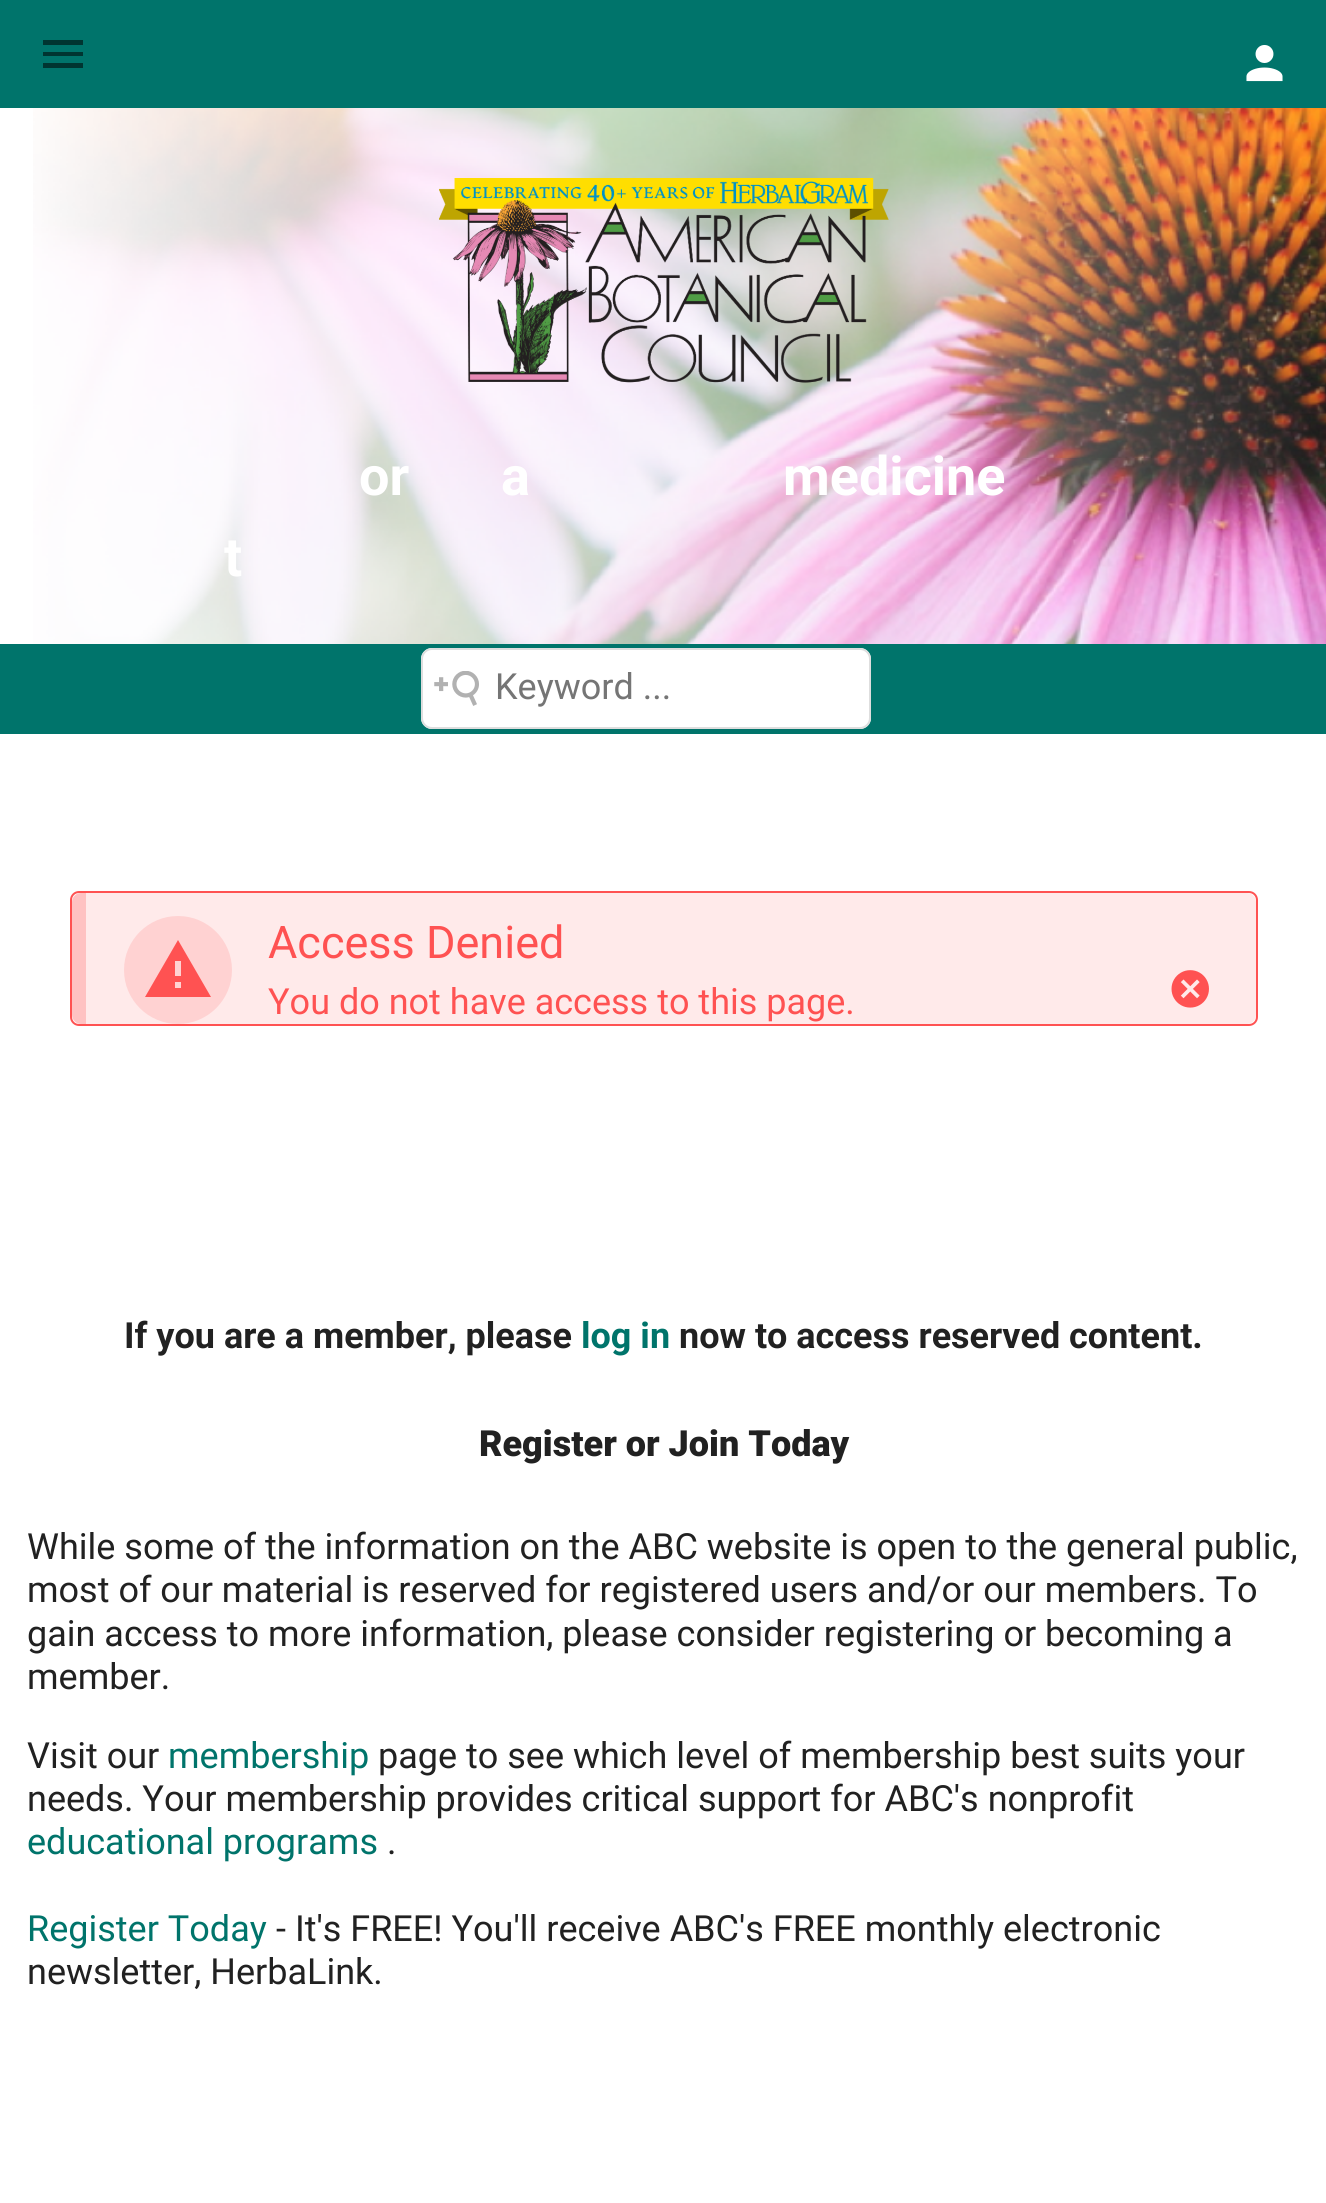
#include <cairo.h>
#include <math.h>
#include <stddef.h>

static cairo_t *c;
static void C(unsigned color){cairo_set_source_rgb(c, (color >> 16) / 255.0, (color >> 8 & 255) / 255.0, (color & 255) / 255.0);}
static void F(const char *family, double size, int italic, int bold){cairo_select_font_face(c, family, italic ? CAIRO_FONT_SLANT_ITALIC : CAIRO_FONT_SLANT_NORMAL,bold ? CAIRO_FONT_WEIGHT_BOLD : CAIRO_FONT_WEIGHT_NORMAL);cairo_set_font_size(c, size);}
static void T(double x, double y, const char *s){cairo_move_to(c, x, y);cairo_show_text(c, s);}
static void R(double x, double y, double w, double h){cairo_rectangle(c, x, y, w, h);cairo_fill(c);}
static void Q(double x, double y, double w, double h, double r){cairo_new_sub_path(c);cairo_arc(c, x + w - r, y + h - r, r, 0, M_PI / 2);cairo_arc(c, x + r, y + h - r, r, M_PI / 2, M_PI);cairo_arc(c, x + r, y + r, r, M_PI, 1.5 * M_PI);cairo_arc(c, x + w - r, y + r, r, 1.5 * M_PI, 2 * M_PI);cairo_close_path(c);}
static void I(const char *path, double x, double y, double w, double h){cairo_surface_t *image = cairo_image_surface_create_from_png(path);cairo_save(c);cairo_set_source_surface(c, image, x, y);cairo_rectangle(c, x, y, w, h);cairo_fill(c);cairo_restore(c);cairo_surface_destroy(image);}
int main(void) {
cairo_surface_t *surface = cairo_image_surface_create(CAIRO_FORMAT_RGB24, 1326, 2203);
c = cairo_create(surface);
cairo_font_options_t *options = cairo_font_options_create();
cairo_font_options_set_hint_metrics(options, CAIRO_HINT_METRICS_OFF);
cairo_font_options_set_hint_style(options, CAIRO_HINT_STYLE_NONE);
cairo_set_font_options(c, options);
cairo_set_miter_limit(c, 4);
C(0xffffff);
cairo_paint(c);
I("1.png",33,108,1293,536);
C(0x00746b);
R(0,644,1326,90);
R(0,0,1326,108);
I("2.png",1246,45,37,37);
I("3.png",439,178,450,205);
F("Roboto",54,0,1);
C(0xffffff);
T(359,495,"or");
T(501,495,"a");
T(783,495,"medicine");
T(224,576,"t");
Q(71,892,1186,133,8);
C(0xff5252);
cairo_stroke(c);
cairo_set_source_rgba(c,1,0.322,0.322,0.12);
Q(72,893,1184,131,9);
cairo_fill(c);
cairo_set_source_rgba(c,1,0.322,0.322,0.26);
cairo_new_path(c);
cairo_move_to(c,81,893);
cairo_line_to(c,86,893);
cairo_line_to(c,86,1024);
cairo_line_to(c,81,1024);
cairo_curve_to(c,76,1024,72,1020,72,1015);
cairo_line_to(c,72,902);
cairo_curve_to(c,72,897,76,893,81,893);
cairo_close_path(c);
cairo_fill(c);
C(0xff5252);
cairo_new_path(c);
cairo_move_to(c,181,976);
cairo_line_to(c,175,976);
cairo_line_to(c,175,961);
cairo_line_to(c,181,961);
cairo_close_path(c);
cairo_move_to(c,181,988);
cairo_line_to(c,175,988);
cairo_line_to(c,175,982);
cairo_line_to(c,181,982);
cairo_close_path(c);
cairo_move_to(c,145,997);
cairo_line_to(c,211,997);
cairo_line_to(c,178,940);
cairo_close_path(c);
cairo_fill(c);
cairo_set_source_rgba(c,1,0.322,0.322,0.16);
cairo_arc(c,178,970,54,0,2 * M_PI);
cairo_fill(c);
F("Roboto",45,0,0);
C(0xff5252);
T(268,958,"Access Denied");
F("Roboto",36,0,0);
T(268,1014,"You do not have access to this page.");
I("4.png",1171,970,38,38);
F("Roboto",36,0,1);
C(0x212121);
T(124,1348,"If you are a member, please");
C(0x00746b);
T(581,1348,"log in");
C(0x212121);
T(679,1348,"now to access reserved content.");
F("Roboto Black",36,0,0);
T(479,1456,"Register or Join Today");
F("Roboto",36,0,0);
T(27,1559,"While some of the information on the ABC website is open to the general public,");
T(27,1602,"most of our material is reserved for registered users and/or our members. To");
T(27,1646,"gain access to more information, please consider registering or becoming a");
T(27,1689,"member.");
T(27,1768,"Visit our");
C(0x00746b);
T(168,1768,"membership");
C(0x212121);
T(378,1768,"page to see which level of membership best suits your");
T(27,1811,"needs. Your membership provides critical support for ABC's nonprofit");
C(0x00746b);
T(27,1854,"educational programs");
C(0x212121);
T(387,1854,".");
C(0x00746b);
T(27,1941,"Register Today");
C(0x212121);
T(276,1941,"- It's FREE! You'll receive ABC's FREE monthly electronic");
T(27,1984,"newsletter, HerbaLink.");
C(0x003531);
cairo_new_path(c);
cairo_move_to(c,43,40);
cairo_line_to(c,83,40);
cairo_line_to(c,83,45);
cairo_line_to(c,43,45);
cairo_close_path(c);
cairo_move_to(c,43,52);
cairo_line_to(c,83,52);
cairo_line_to(c,83,56);
cairo_line_to(c,43,56);
cairo_close_path(c);
cairo_move_to(c,43,63);
cairo_line_to(c,83,63);
cairo_line_to(c,83,68);
cairo_line_to(c,43,68);
cairo_close_path(c);
cairo_fill(c);
C(0xffffff);
Q(421,648,450,81,11);
cairo_fill(c);
I("5.png",434,671,45,35);
Q(422,649,448,79,10);
C(0xdedede);
cairo_stroke(c);
C(0x757575);
T(495,699,"Keyword ...");
cairo_surface_write_to_png(surface, "o.png");
cairo_font_options_destroy(options);
cairo_destroy(c);
cairo_surface_destroy(surface);
return 0;
}
